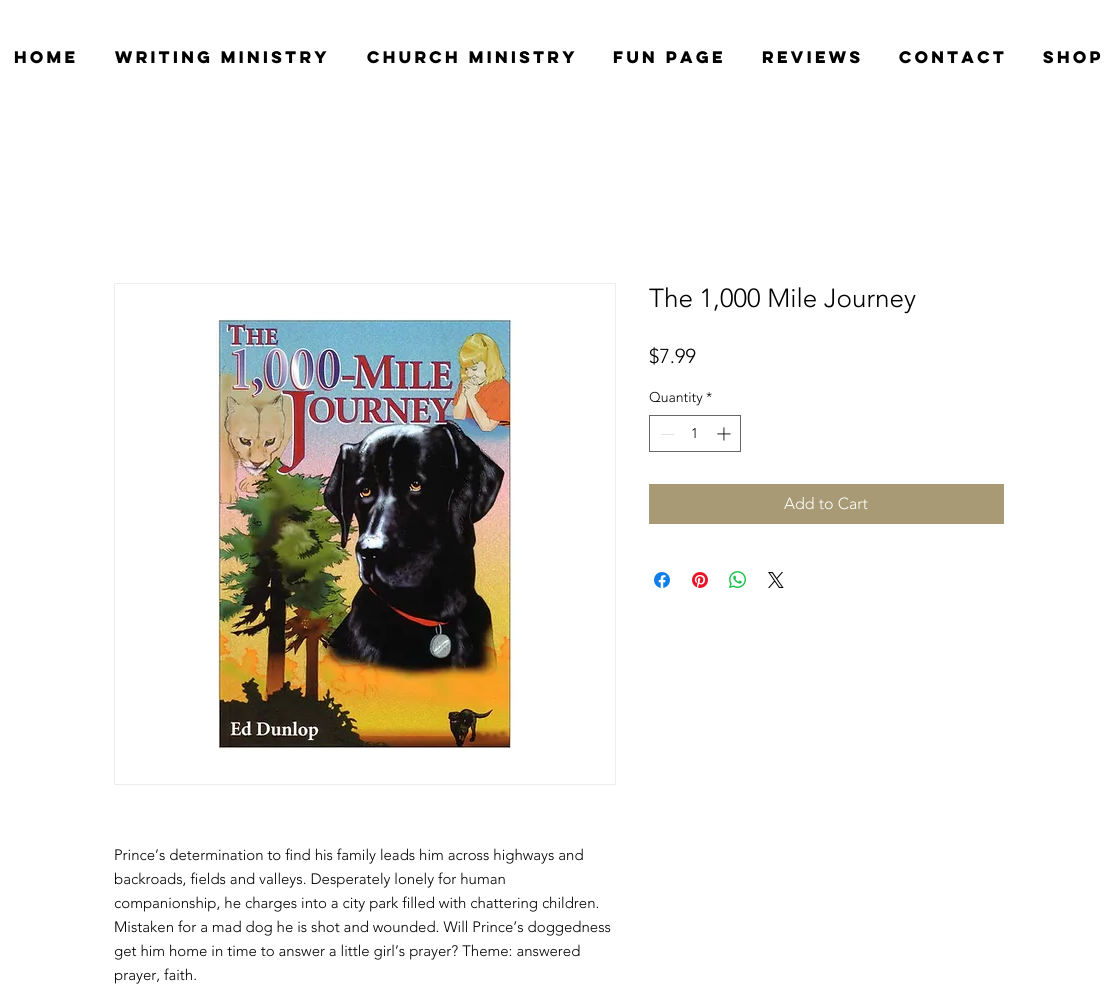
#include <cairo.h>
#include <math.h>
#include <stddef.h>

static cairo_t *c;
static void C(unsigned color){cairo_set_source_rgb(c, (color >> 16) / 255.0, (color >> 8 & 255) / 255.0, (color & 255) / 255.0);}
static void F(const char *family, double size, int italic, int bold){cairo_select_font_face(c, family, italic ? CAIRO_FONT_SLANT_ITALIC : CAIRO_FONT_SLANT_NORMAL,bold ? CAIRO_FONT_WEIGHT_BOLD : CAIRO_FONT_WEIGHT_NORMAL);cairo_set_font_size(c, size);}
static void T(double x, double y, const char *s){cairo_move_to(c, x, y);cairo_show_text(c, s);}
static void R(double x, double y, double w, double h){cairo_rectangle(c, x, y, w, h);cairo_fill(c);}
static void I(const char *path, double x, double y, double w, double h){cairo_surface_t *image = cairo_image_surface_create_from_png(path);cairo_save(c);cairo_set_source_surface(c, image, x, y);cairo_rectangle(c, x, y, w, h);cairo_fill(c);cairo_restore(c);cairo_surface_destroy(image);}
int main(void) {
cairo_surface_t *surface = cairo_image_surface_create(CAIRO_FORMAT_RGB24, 1117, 995);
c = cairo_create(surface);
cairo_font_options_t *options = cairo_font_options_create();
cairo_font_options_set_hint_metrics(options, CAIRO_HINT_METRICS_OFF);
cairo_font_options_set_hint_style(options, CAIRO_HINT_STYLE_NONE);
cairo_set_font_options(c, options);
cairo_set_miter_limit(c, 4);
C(0xffffff);
cairo_paint(c);
F("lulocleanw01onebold",15,0,1);
C(0x000000);
T(14,63,"Home");
T(115,63,"Writing Ministry");
T(367,63,"Church Ministry");
T(613,63,"Fun Page");
T(762,63,"Reviews");
T(899,63,"Contact");
T(1043,63,"Shop");
F("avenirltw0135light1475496 Light",26,0,0);
T(649,307,"The 1,000 Mile Journey");
F("avenirltw0135light1475496 Light",20,0,0);
T(649,363,"$7.99");
F("avenirltw0135light1475496 Light",14,0,0);
T(649,402,"Quantity");
T(706,402,"*");
cairo_rectangle(c,649.5,415.5,91,36);
C(0x666666);
cairo_set_line_width(c,1);
cairo_stroke(c);
C(0xe3e3e3);
R(661,434,13,1);
C(0x000000);
T(691,438,"1");
I("1.png",717,427,14,14);
C(0xa89a74);
R(649,484,355,40);
F("avenirltw0135light1475496 Light",16,0,0);
C(0xffffff);
T(784,509,"Add to Cart");
I("2.png",654,572,16,16);
I("3.png",692,572,16,16);
I("4.png",729,571,17,17);
I("5.png",768,572,16,16);
cairo_rectangle(c,114.5,283.5,501,501);
C(0xededed);
cairo_stroke(c);
I("6.png",216,318,299,434);
F("avenirltw0135light1475496 Light",15,0,0);
C(0x000000);
T(114,860,"Prince’s determination to find his family leads him across highways and");
T(114,884,"backroads, fields and valleys. Desperately lonely for human");
T(114,908,"companionship, he charges into a city park filled with chattering children.");
T(114,932,"Mistaken for a mad dog he is shot and wounded. Will Prince’s doggedness");
T(114,956,"get him home in time to answer a little girl’s prayer? Theme: answered");
T(114,980,"prayer, faith.");
cairo_surface_write_to_png(surface, "o.png");
cairo_font_options_destroy(options);
cairo_destroy(c);
cairo_surface_destroy(surface);
return 0;
}
